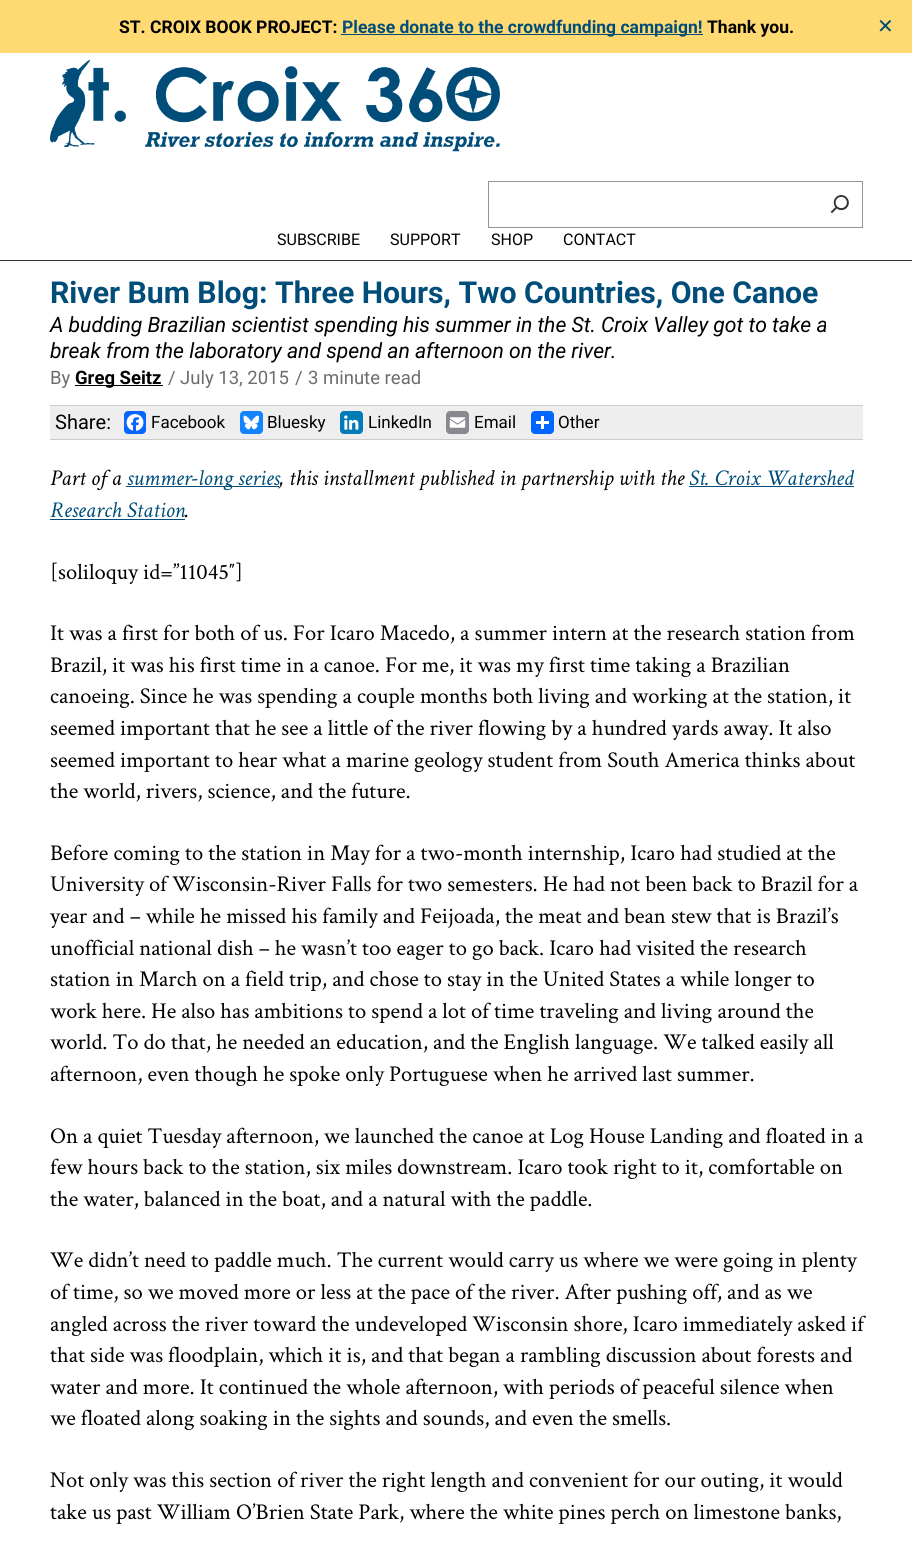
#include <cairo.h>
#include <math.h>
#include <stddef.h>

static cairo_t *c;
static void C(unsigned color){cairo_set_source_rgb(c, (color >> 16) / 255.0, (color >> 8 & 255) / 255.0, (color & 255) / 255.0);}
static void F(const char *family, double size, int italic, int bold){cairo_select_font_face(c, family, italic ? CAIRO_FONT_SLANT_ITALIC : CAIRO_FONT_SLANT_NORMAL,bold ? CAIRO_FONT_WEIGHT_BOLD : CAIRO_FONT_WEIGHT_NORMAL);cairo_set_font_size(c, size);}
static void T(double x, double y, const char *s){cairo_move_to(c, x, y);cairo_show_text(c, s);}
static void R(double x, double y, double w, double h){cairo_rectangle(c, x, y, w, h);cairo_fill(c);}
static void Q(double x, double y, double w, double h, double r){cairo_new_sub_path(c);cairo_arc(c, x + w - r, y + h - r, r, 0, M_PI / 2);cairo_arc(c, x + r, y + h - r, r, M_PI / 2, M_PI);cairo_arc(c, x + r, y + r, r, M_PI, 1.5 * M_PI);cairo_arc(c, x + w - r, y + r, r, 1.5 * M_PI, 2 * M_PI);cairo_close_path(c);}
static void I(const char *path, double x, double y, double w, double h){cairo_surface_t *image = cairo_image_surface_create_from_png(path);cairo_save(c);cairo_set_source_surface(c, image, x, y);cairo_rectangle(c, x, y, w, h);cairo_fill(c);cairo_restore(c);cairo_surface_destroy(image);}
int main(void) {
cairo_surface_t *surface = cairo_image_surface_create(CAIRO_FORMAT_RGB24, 912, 1544);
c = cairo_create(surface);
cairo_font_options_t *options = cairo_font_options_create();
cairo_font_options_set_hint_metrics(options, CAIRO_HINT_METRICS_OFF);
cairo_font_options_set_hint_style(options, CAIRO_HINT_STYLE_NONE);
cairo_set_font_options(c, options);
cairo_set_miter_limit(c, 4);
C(0xffffff);
cairo_paint(c);
C(0xffda73);
R(0,0,912,53);
F("Roboto",17.5,0,1);
C(0x000000);
T(119,33,"ST. CROIX BOOK PROJECT:");
C(0x004d7a);
R(341,34,362,1);
T(342,33,"Please donate to the crowdfunding campaign!");
C(0x000000);
T(707,33,"Thank you.");
F("DejaVu Sans",20,0,0);
C(0x004d7a);
T(877,33,"✕");
C(0x333333);
R(0,260,912,1);
I("1.png",50,60,450,92);
cairo_rectangle(c,488.5,181.5,374,46);
C(0x949494);
cairo_set_line_width(c,1);
cairo_stroke(c);
I("2.png",830,195,19,19);
F("Roboto",16,0,0);
C(0x000000);
T(277,245,"SUBSCRIBE");
T(390,245,"SUPPORT");
T(491,245,"SHOP");
T(563,245,"CONTACT");
F("Roboto",30.2,0,1);
C(0x004d7a);
T(50,303,"River Bum Blog: Three Hours, Two Countries, One Canoe");
F("Roboto",21.15,1,0);
C(0x000000);
T(50,332,"A budding Brazilian scientist spending his summer in the St. Croix Valley got to take a");
T(50,358,"break from the laboratory and spend an afternoon on the river.");
F("Roboto",18.5,0,0);
C(0x6d6d6d);
T(50,384,"By");
C(0x000000);
R(75,385,88,1);
F("Roboto",18.5,0,1);
T(75,384,"Greg Seitz");
F("Roboto",18.5,0,0);
C(0x6d6d6d);
T(168,384,"/");
T(180,384,"July 13, 2015");
T(295,384,"/");
T(308,384,"3 minute read");
C(0xeeeeee);
R(50,406,813,33);
C(0xcccccc);
R(50,405,813,1);
R(50,439,813,1);
F("Roboto",20,0,0);
C(0x000000);
T(55,429,"Share:");
C(0x0866ff);
Q(124,411,22,23,4);
cairo_fill(c);
I("3.png",126,414,18,17);
F("Roboto",17,0,0);
C(0x000000);
T(151,428,"Facebook");
C(0x1285fe);
Q(240,411,23,23,4);
cairo_fill(c);
I("4.png",243,415,16,15);
C(0x000000);
T(267,428,"Bluesky");
C(0x007bb5);
Q(340,411,23,23,4);
cairo_fill(c);
I("5.png",344,415,15,15);
C(0x000000);
T(368,428,"LinkedIn");
C(0x888990);
Q(446,411,23,23,4);
cairo_fill(c);
I("6.png",449,417,17,11);
C(0x000000);
T(474,428,"Email");
C(0x0166ff);
Q(531,411,23,23,4);
cairo_fill(c);
C(0xffffff);
R(541,416,3,13);
R(536,421,13,3);
C(0x000000);
T(558,428,"Other");
F("Crimson Text",22.6,1,0);
T(50,485,"Part of a");
C(0x004d7a);
R(126,486,153,1);
T(127,485,"summer-long series");
C(0x000000);
T(279,485,", this installment published in partnership with the");
C(0x004d7a);
R(689,486,165,1);
T(689,485,"St. Croix Watershed");
T(50,517,"Research Station");
C(0x000000);
T(185,517,".");
C(0x004d7a);
R(50,519,135,1);
F("Crimson Text",22.6,0,0);
C(0x000000);
T(50,579,"[soliloquy id=”11045″]");
T(50,640,"It was a first for both of us. For Icaro Macedo, a summer intern at the research station from");
T(50,672,"Brazil, it was his first time in a canoe. For me, it was my first time taking a Brazilian");
T(50,703,"canoeing. Since he was spending a couple months both living and working at the station, it");
T(50,735,"seemed important that he see a little of the river flowing by a hundred yards away. It also");
T(50,767,"seemed important to hear what a marine geology student from South America thinks about");
T(50,798,"the world, rivers, science, and the future.");
T(50,860,"Before coming to the station in May for a two-month internship, Icaro had studied at the");
T(50,891,"University of Wisconsin-River Falls for two semesters. He had not been back to Brazil for a");
T(50,923,"year and – while he missed his family and Feijoada, the meat and bean stew that is Brazil’s");
T(50,955,"unofficial national dish – he wasn’t too eager to go back. Icaro had visited the research");
T(50,986,"station in March on a field trip, and chose to stay in the United States a while longer to");
T(50,1018,"work here. He also has ambitions to spend a lot of time traveling and living around the");
T(50,1049,"world. To do that, he needed an education, and the English language. We talked easily all");
T(50,1081,"afternoon, even though he spoke only Portuguese when he arrived last summer.");
T(50,1143,"On a quiet Tuesday afternoon, we launched the canoe at Log House Landing and floated in a");
T(50,1174,"few hours back to the station, six miles downstream. Icaro took right to it, comfortable on");
T(50,1206,"the water, balanced in the boat, and a natural with the paddle.");
T(50,1267,"We didn’t need to paddle much. The current would carry us where we were going in plenty");
T(50,1299,"of time, so we moved more or less at the pace of the river. After pushing off, and as we");
T(50,1331,"angled across the river toward the undeveloped Wisconsin shore, Icaro immediately asked if");
T(50,1362,"that side was floodplain, which it is, and that began a rambling discussion about forests and");
T(50,1394,"water and more. It continued the whole afternoon, with periods of peaceful silence when");
T(50,1425,"we floated along soaking in the sights and sounds, and even the smells.");
T(50,1487,"Not only was this section of river the right length and convenient for our outing, it would");
T(50,1519,"take us past William O’Brien State Park, where the white pines perch on limestone banks,");
cairo_surface_write_to_png(surface, "o.png");
cairo_font_options_destroy(options);
cairo_destroy(c);
cairo_surface_destroy(surface);
return 0;
}
